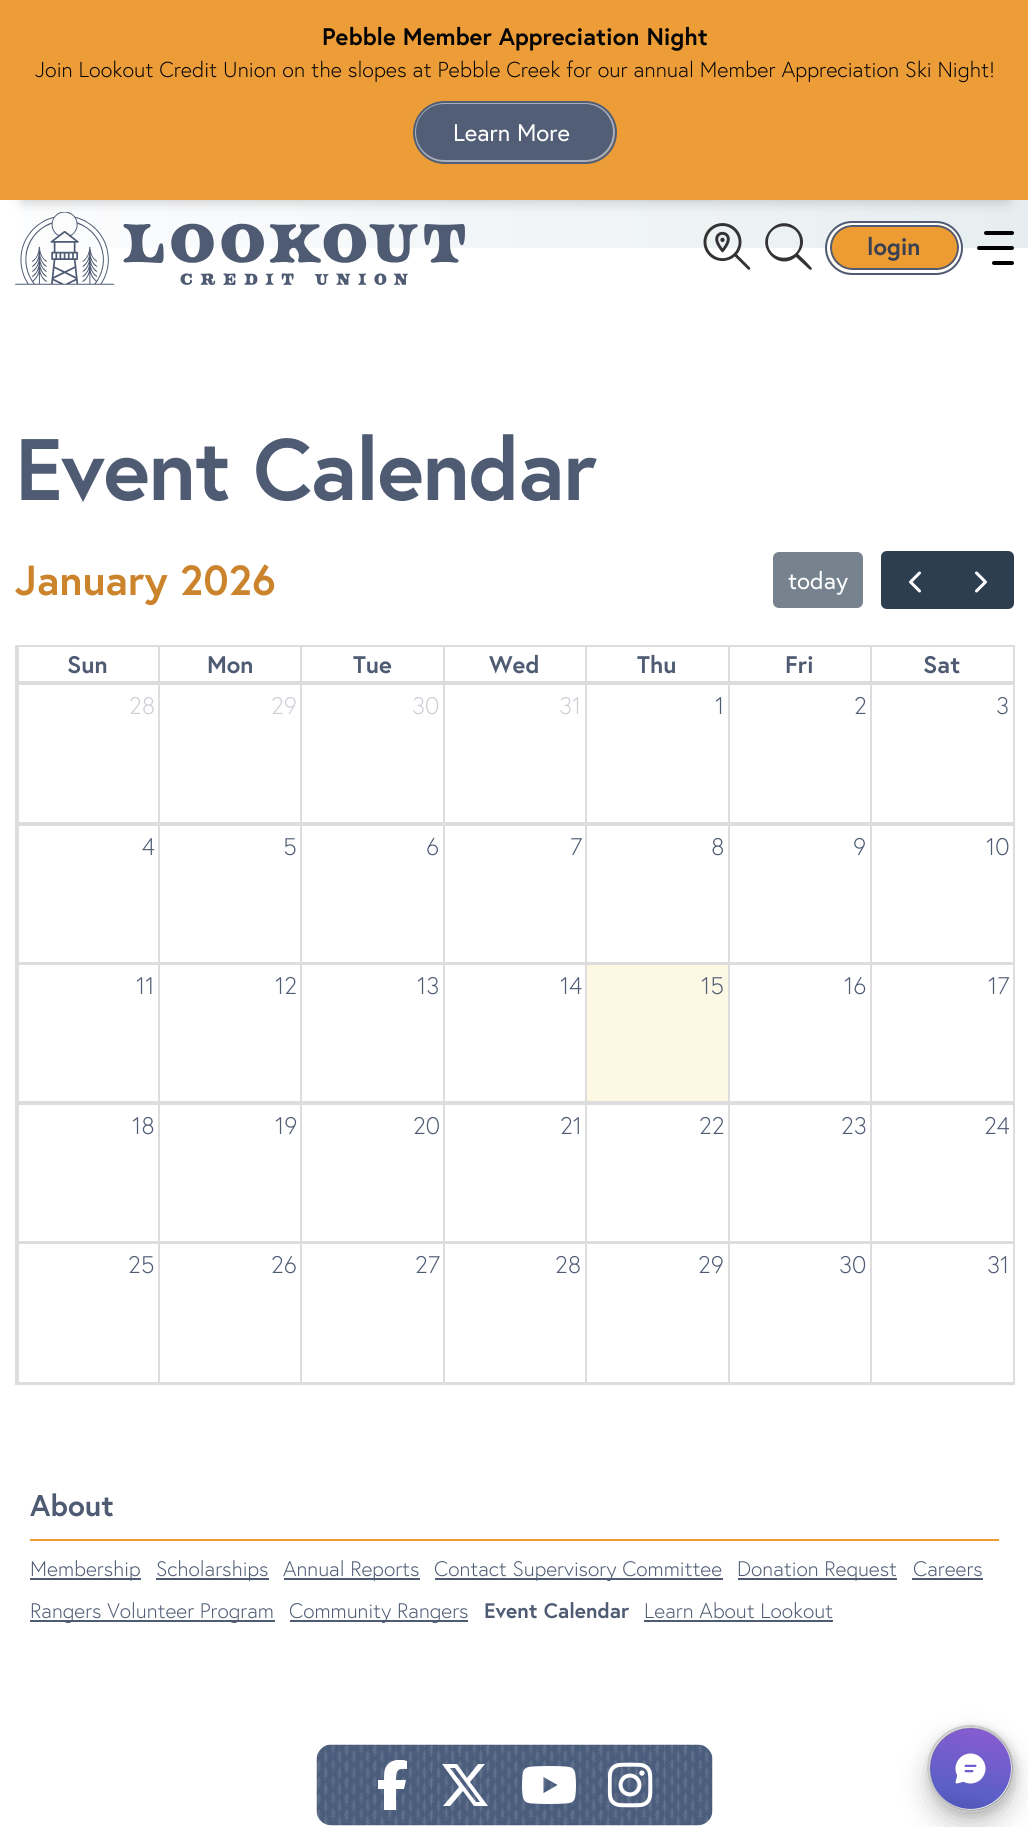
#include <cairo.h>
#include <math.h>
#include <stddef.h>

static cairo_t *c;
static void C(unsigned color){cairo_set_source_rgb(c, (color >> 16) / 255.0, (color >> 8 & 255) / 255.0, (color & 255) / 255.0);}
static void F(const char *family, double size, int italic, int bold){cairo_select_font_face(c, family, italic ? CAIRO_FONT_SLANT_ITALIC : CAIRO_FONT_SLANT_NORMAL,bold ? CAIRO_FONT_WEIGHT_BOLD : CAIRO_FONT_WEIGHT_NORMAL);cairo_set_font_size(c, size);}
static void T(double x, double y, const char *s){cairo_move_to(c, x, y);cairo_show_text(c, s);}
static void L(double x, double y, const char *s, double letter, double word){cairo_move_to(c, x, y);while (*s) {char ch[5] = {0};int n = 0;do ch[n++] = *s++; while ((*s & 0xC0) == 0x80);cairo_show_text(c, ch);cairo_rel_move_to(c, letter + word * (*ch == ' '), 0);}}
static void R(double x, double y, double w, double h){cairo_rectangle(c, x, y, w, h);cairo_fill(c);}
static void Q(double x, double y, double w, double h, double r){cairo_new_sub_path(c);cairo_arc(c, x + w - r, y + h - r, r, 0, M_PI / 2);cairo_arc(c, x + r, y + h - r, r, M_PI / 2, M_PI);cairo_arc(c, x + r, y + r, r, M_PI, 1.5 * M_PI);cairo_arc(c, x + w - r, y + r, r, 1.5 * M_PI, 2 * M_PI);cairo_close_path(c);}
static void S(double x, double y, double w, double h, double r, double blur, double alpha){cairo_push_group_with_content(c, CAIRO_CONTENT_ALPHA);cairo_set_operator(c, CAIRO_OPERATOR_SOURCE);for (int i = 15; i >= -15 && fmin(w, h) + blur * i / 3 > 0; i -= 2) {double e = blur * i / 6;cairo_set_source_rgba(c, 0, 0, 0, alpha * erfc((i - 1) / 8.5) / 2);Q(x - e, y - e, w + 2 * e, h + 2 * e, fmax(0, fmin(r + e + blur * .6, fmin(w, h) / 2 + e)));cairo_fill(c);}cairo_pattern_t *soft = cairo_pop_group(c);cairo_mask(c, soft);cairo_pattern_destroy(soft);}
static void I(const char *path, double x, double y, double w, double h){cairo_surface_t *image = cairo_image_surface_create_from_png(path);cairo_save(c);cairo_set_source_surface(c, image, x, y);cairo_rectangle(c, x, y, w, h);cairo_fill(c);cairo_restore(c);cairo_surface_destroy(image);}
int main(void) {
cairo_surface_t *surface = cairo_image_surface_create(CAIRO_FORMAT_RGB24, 1028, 1827);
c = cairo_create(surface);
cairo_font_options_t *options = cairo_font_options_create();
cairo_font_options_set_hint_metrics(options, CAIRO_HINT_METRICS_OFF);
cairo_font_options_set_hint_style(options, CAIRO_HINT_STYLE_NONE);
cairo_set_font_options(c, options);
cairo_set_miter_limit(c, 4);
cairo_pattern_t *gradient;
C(0xffffff);
cairo_paint(c);
gradient = cairo_pattern_create_linear(0,224,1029,223);
cairo_pattern_add_color_stop_rgba(gradient,0,0.992,0.992,0.996,1);
cairo_pattern_add_color_stop_rgba(gradient,1,0.906,0.933,0.941,1);
cairo_set_source(c,gradient);
cairo_pattern_destroy(gradient);
R(23,200,1005,48);
I("1.png",15,212,450,73);
I("2.png",703,223,48,47);
C(0x333333);
cairo_new_path(c);
cairo_move_to(c,800,242);
cairo_curve_to(c,800,221,768,221,768,242);
cairo_curve_to(c,768,263,800,263,800,242);
cairo_close_path(c);
cairo_move_to(c,796,257);
cairo_curve_to(c,778,272,754,246,771,229);
cairo_curve_to(c,788,212,814,236,798,254);
cairo_curve_to(c,800,256,812,267,812,269);
cairo_curve_to(c,812,270,810,270,809,269);
cairo_close_path(c);
cairo_fill(c);
C(0xed9b33);
Q(827,222,135,51,25.5);
cairo_fill(c);
Q(831,226,127,43,21.5);
C(0x4e5b73);
cairo_stroke(c);
Q(828.5,223.5,132,48,24);
C(0xffffff);
cairo_set_line_width(c,3);
cairo_stroke(c);
Q(826,222,136,52,26);
C(0x4e5b73);
cairo_set_line_width(c,2);
cairo_stroke(c);
C(0x000000);
S(23,45,984,155,0,7.5,.24);
C(0xed9d37);
R(0,0,1028,200);
F("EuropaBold",24,0,1);
C(0x050505);
T(322,45,"Pebble Member Appreciation Night");
F("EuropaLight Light",21.6,0,0);
T(35,77,"Join Lookout Credit Union on the slopes at Pebble Creek for our annual Member Appreciation Ski Night!");
C(0x525e76);
Q(414,102,201,60,30);
cairo_fill(c);
Q(415,103,199,58,29);
cairo_set_source_rgba(c,1,1,1,0.5);
cairo_stroke(c);
Q(414,102,202,61,30.5);
C(0x525e76);
cairo_stroke(c);
F("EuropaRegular",24,0,0);
C(0xffffff);
T(453,141,"Learn More");
F("EuropaBold",24,0,1);
C(0x384052);
T(867,255,"login");
C(0x000000);
Q(984,231,30,4,2);
cairo_fill(c);
Q(977,246,37,4,2);
cairo_fill(c);
Q(992,261,22,4,2);
cairo_fill(c);
F("EuropaBold",87,0,1);
C(0x4e5b73);
L(15,500,"Event Calendar",-1.5,0);
F("EuropaBold",42,0,1);
C(0xcb842c);
T(15,595,"January 2026");
C(0x76828d);
Q(773,552,90,56,6);
cairo_fill(c);
F("EuropaRegular",24,0,0);
C(0xffffff);
T(788,589,"today");
C(0x2c3e50);
cairo_new_path(c);
cairo_move_to(c,887,551);
cairo_line_to(c,948,551);
cairo_line_to(c,948,609);
cairo_line_to(c,887,609);
cairo_curve_to(c,883.5,609,881,606.5,881,603);
cairo_line_to(c,881,557);
cairo_curve_to(c,881,553.5,883.5,551,887,551);
cairo_close_path(c);
cairo_fill(c);
I("3.png",909,571,12,22);
cairo_new_path(c);
cairo_move_to(c,947,551);
cairo_line_to(c,1008,551);
cairo_curve_to(c,1011.5,551,1014,553.5,1014,557);
cairo_line_to(c,1014,603);
cairo_curve_to(c,1014,606.5,1011.5,609,1008,609);
cairo_line_to(c,947,609);
cairo_close_path(c);
cairo_fill(c);
I("4.png",975,571,12,22);
C(0xdddddd);
R(15,645,999,2);
R(15,683,999,2);
R(1013,683,2,702);
R(1013,645,2,39);
R(15,1383,999,2);
R(15,683,2,702);
R(15,645,2,39);
R(870,681,144,2);
R(870,645,2,38);
R(728,681,144,2);
R(728,645,2,38);
R(585,681,144,2);
R(585,645,2,38);
R(443,681,144,2);
R(443,645,2,38);
R(300,681,144,2);
R(300,645,2,38);
R(158,681,144,2);
R(158,645,2,38);
R(17,681,142,2);
R(17,645,2,38);
F("EuropaBold",24,0,1);
C(0x4e5b73);
T(67,673,"Sun");
T(207,673,"Mon");
T(353,673,"Tue");
T(489,673,"Wed");
T(637,673,"Thu");
T(785,673,"Fri");
T(923,673,"Sat");
C(0xdddddd);
R(870,822,143,4);
R(870,684,2,140);
R(728,822,144,2);
R(728,684,2,140);
R(585,822,144,2);
R(585,684,2,140);
R(443,822,144,2);
R(443,684,2,140);
R(300,822,144,2);
R(300,684,2,140);
R(158,822,144,2);
R(158,684,2,140);
R(17,822,142,2);
R(17,684,2,140);
F("EuropaLight Light",24,0,0);
C(0xcaced5);
T(129,714,"28");
T(271,714,"29");
T(412,714,"30");
T(559,714,"31");
C(0x4e5b73);
T(715,714,"1");
T(854,714,"2");
T(996,714,"3");
C(0xdddddd);
R(870,962,143,3);
R(870,824,2,139);
R(728,824,144,2);
R(728,962,144,1);
R(728,824,2,139);
R(585,824,144,2);
R(585,962,144,1);
R(585,824,2,139);
R(443,824,144,2);
R(443,962,144,1);
R(443,824,2,139);
R(300,824,144,2);
R(300,962,144,1);
R(300,824,2,139);
R(158,824,144,2);
R(158,962,144,1);
R(158,824,2,139);
R(17,824,142,2);
R(17,962,142,1);
R(17,824,2,139);
C(0x4e5b73);
T(142,855,"4");
T(283,855,"5");
T(426,855,"6");
T(570,855,"7");
T(711,855,"8");
T(853,855,"9");
T(986,855,"10");
C(0xdddddd);
R(870,1101,143,4);
R(870,963,2,140);
R(728,963,144,2);
R(728,1101,144,2);
R(728,963,2,140);
R(585,963,144,2);
R(585,1101,144,2);
R(585,963,2,140);
R(443,963,144,2);
R(443,1101,144,2);
R(443,963,2,140);
R(300,963,144,2);
R(300,1101,144,2);
R(300,963,2,140);
R(158,963,144,2);
R(158,1101,144,2);
R(158,963,2,140);
R(17,963,142,2);
R(17,1101,142,2);
R(17,963,2,140);
C(0xfcf8e3);
R(587,965,141,136);
C(0x4e5b73);
T(136,994,"11");
T(275,994,"12");
T(417,994,"13");
T(560,994,"14");
T(701,994,"15");
T(844,994,"16");
T(988,994,"17");
C(0xdddddd);
R(870,1241,143,3);
R(870,1103,2,139);
R(728,1103,144,2);
R(728,1241,144,1);
R(728,1103,2,139);
R(585,1103,144,2);
R(585,1241,144,1);
R(585,1103,2,139);
R(443,1103,144,2);
R(443,1241,144,1);
R(443,1103,2,139);
R(300,1103,144,2);
R(300,1241,144,1);
R(300,1103,2,139);
R(158,1103,144,2);
R(158,1241,144,1);
R(158,1103,2,139);
R(17,1103,142,2);
R(17,1241,142,1);
R(17,1103,2,139);
C(0x4e5b73);
T(132,1134,"18");
T(275,1134,"19");
T(413,1134,"20");
T(560,1134,"21");
T(699,1134,"22");
T(841,1134,"23");
T(984,1134,"24");
C(0xdddddd);
R(870,1382,143,1);
R(870,1242,2,141);
R(728,1242,144,2);
R(728,1382,144,1);
R(728,1242,2,141);
R(585,1242,144,2);
R(585,1382,144,1);
R(585,1242,2,141);
R(443,1242,144,2);
R(443,1382,144,1);
R(443,1242,2,141);
R(300,1242,144,2);
R(300,1382,144,1);
R(300,1242,2,141);
R(158,1242,144,2);
R(158,1382,144,1);
R(158,1242,2,141);
R(17,1242,142,2);
R(17,1382,142,1);
R(17,1242,2,141);
C(0x4e5b73);
T(128,1273,"25");
T(271,1273,"26");
T(415,1273,"27");
T(555,1273,"28");
T(698,1273,"29");
T(839,1273,"30");
T(987,1273,"31");
C(0xed9b33);
R(30,1539,969,2);
F("EuropaBold",30,0,1);
C(0x4e5b73);
T(30,1516,"About");
R(30,1578,111,2);
F("EuropaLight Light",21,0,0);
T(30,1576,"Membership");
R(156,1578,113,2);
T(156,1576,"Scholarships");
R(284,1578,136,2);
T(283,1576,"Annual Reports");
R(435,1578,288,2);
T(434,1576,"Contact Supervisory Committee");
R(738,1578,159,2);
T(737,1576,"Donation Request");
T(913,1576,"Careers");
R(912,1578,71,2);
R(30,1620,245,2);
T(30,1618,"Rangers Volunteer Program");
R(290,1620,178,2);
T(289,1618,"Community Rangers");
F("EuropaBold",21,0,1);
T(484,1618,"Event Calendar");
F("EuropaLight Light",21,0,0);
T(644,1618,"Learn About Lookout");
R(644,1620,189,2);
I("5.png",316,1744,397,82);
cairo_save(c);
cairo_rectangle(c,377,1760,31,51);
cairo_clip(c);
C(0xffffff);
cairo_new_path(c);
cairo_move_to(c,384,1789);
cairo_line_to(c,384,1810);
cairo_line_to(c,396,1810);
cairo_line_to(c,396,1789);
cairo_line_to(c,404,1789);
cairo_line_to(c,406,1780);
cairo_line_to(c,396,1780);
cairo_curve_to(c,396,1771,397,1768,407,1769);
cairo_line_to(c,407,1761);
cairo_curve_to(c,399,1758,388,1760,385,1769);
cairo_curve_to(c,384,1772,384,1776,384,1780);
cairo_line_to(c,378,1780);
cairo_line_to(c,378,1789);
cairo_close_path(c);
cairo_fill(c);
cairo_restore(c);
C(0xffffff);
cairo_new_path(c);
cairo_move_to(c,478,1764);
cairo_line_to(c,485,1764);
cairo_line_to(c,470,1782);
cairo_line_to(c,488,1806);
cairo_line_to(c,474,1806);
cairo_line_to(c,463,1791);
cairo_line_to(c,450,1806);
cairo_line_to(c,443,1806);
cairo_line_to(c,459,1787);
cairo_line_to(c,442,1764);
cairo_line_to(c,457,1764);
cairo_line_to(c,467,1778);
cairo_close_path(c);
cairo_move_to(c,476,1802);
cairo_line_to(c,480,1802);
cairo_line_to(c,455,1768);
cairo_line_to(c,450,1768);
cairo_close_path(c);
cairo_fill(c);
I("6.png",522,1766,54,38);
I("7.png",608,1762,45,46);
cairo_save(c);
cairo_set_fill_rule(c,CAIRO_FILL_RULE_EVEN_ODD);
cairo_new_path(c);
cairo_move_to(c,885,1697);
cairo_line_to(c,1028,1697);
cairo_line_to(c,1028,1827);
cairo_line_to(c,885,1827);
cairo_close_path(c);
cairo_move_to(c,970.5,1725);
cairo_curve_to(c,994.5,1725,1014,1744.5,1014,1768.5);
cairo_curve_to(c,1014,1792.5,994.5,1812,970.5,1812);
cairo_curve_to(c,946.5,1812,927,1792.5,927,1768.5);
cairo_curve_to(c,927,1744.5,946.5,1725,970.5,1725);
cairo_close_path(c);
cairo_clip(c);
C(0x000000);
S(927,1739,87,87,43.5,13.5,.2);
cairo_restore(c);
cairo_save(c);
cairo_set_fill_rule(c,CAIRO_FILL_RULE_EVEN_ODD);
cairo_new_path(c);
cairo_move_to(c,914,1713);
cairo_line_to(c,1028,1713);
cairo_line_to(c,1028,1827);
cairo_line_to(c,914,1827);
cairo_close_path(c);
cairo_move_to(c,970.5,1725);
cairo_curve_to(c,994.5,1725,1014,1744.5,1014,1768.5);
cairo_curve_to(c,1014,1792.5,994.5,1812,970.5,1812);
cairo_curve_to(c,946.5,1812,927,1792.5,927,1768.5);
cairo_curve_to(c,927,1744.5,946.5,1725,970.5,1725);
cairo_close_path(c);
cairo_clip(c);
C(0x000000);
S(929,1728,87,87,43.5,4.5,.14);
cairo_restore(c);
cairo_arc(c,970.5,1768.5,42.5,0,2 * M_PI);
cairo_set_source_rgba(c,0.459,0.459,0.459,0.4);
cairo_stroke(c);
I("8.png",929,1727,84,84);
cairo_surface_write_to_png(surface, "o.png");
cairo_font_options_destroy(options);
cairo_destroy(c);
cairo_surface_destroy(surface);
return 0;
}
